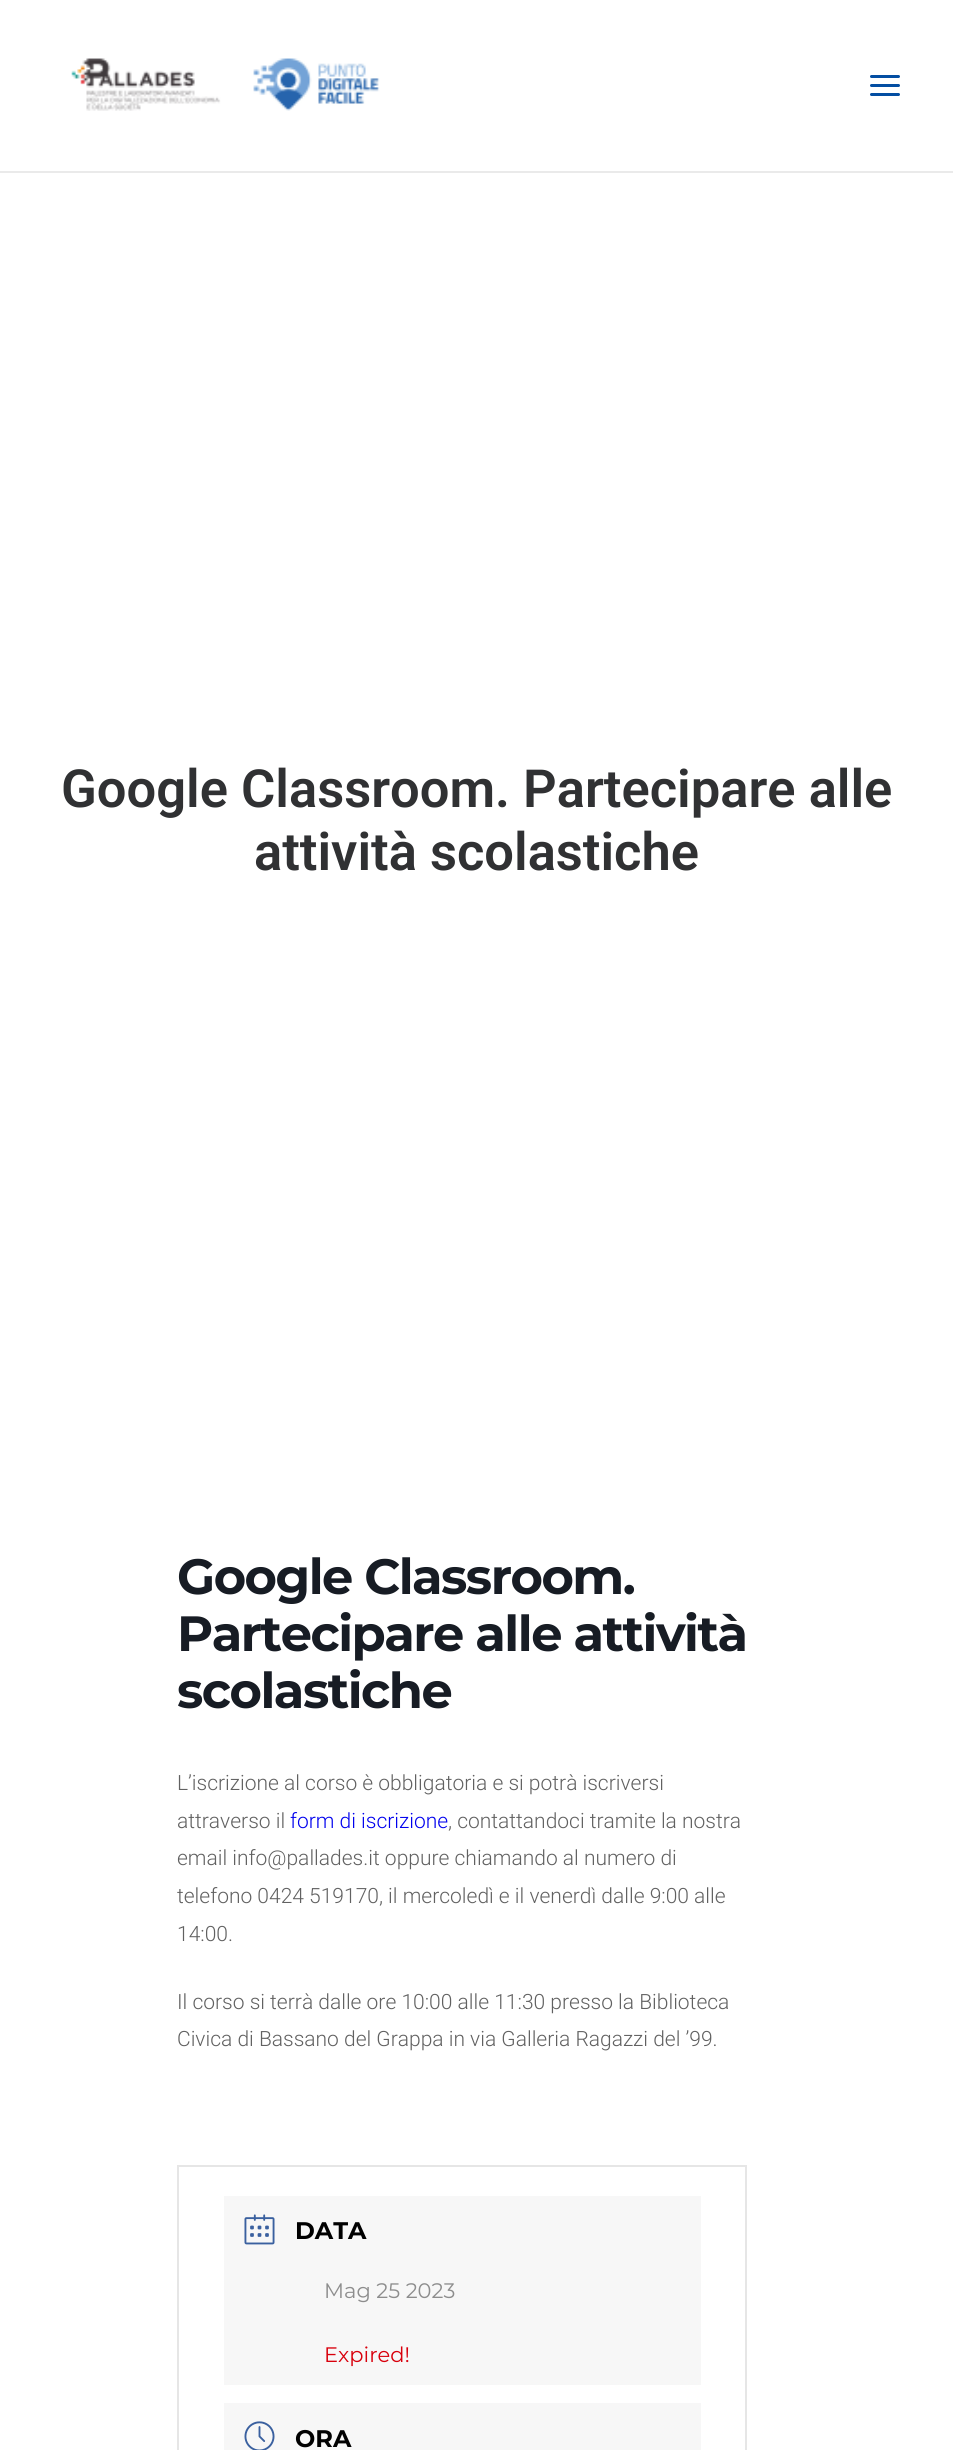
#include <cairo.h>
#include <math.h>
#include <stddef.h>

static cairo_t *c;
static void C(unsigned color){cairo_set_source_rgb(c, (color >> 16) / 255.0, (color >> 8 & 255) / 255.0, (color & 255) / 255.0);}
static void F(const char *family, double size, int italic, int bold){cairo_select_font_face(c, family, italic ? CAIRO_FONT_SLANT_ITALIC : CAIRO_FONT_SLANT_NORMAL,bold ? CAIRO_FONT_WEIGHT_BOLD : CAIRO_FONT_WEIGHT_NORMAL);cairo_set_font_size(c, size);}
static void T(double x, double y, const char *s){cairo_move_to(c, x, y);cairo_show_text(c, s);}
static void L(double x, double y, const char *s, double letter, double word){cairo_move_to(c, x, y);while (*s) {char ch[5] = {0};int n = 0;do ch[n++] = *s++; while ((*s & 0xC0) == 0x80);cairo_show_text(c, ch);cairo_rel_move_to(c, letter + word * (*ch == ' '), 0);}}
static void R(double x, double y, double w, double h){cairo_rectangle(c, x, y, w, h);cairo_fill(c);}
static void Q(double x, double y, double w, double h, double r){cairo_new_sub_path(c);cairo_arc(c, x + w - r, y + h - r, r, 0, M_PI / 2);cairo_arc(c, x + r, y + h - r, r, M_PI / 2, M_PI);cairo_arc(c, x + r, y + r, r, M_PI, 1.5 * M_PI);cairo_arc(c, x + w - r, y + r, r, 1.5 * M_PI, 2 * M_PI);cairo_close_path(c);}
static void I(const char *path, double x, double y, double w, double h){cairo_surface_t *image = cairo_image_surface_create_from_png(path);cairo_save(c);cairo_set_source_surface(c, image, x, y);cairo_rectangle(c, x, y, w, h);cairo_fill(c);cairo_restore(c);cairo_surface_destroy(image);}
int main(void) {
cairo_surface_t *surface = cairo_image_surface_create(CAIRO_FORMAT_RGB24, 953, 2450);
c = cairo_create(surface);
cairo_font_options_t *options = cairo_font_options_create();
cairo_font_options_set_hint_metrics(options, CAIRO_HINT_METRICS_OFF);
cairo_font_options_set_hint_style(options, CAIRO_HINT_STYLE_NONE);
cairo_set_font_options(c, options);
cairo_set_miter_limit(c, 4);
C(0xffffff);
cairo_paint(c);
C(0xeaeaea);
R(0,171,953,2);
I("1.png",71,58,309,53);
C(0x034ea2);
Q(870,84,30,3,1.5);
cairo_fill(c);
Q(870,75,30,3,1.5);
cairo_fill(c);
Q(870,93,30,3,1.5);
cairo_fill(c);
F("Roboto SemiBold",52.5,0,0);
C(0x303133);
T(61,807,"Google Classroom. Partecipare alle");
T(254,870,"attività scolastiche");
F("Montserrat",49.5,0,1);
C(0x171c24);
L(177,1594,"Google Classroom.",-1.5,0);
L(177,1651,"Partecipare alle attività",-1.5,0);
L(177,1708,"scolastiche",-1.5,0);
F("Roboto Light",21,0,0);
C(0x616161);
T(177,1790,"L’iscrizione al corso è obbligatoria e si potrà iscriversi");
T(177,1828,"attraverso il");
C(0x0000ee);
T(290,1828,"form di iscrizione");
C(0x616161);
T(448,1828,", contattandoci tramite la nostra");
T(177,1865,"email info@pallades.it oppure chiamando al numero di");
T(177,1903,"telefono 0424 519170, il mercoledì e il venerdì dalle 9:00 alle");
T(177,1941,"14:00.");
T(177,2009,"Il corso si terrà dalle ore 10:00 alle 11:30 presso la Biblioteca");
T(177,2046,"Civica di Bassano del Grappa in via Galleria Ragazzi del ’99.");
cairo_rectangle(c,178,2166,568,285);
C(0xe6e6e6);
cairo_stroke(c);
C(0xf7f7f7);
R(224,2196,477,189);
I("2.png",244,2214,31,31);
F("Montserrat",24,0,1);
C(0x000000);
T(295,2239,"DATA");
F("Montserrat",21,0,0);
C(0x8d8d8d);
T(324,2298,"Mag 25 2023");
C(0xd8000c);
T(324,2362,"Expired!");
C(0xf7f7f7);
R(224,2403,477,47);
I("3.png",244,2421,31,29);
F("Montserrat",24,0,1);
C(0x000000);
T(295,2447,"ORA");
cairo_surface_write_to_png(surface, "o.png");
cairo_font_options_destroy(options);
cairo_destroy(c);
cairo_surface_destroy(surface);
return 0;
}
